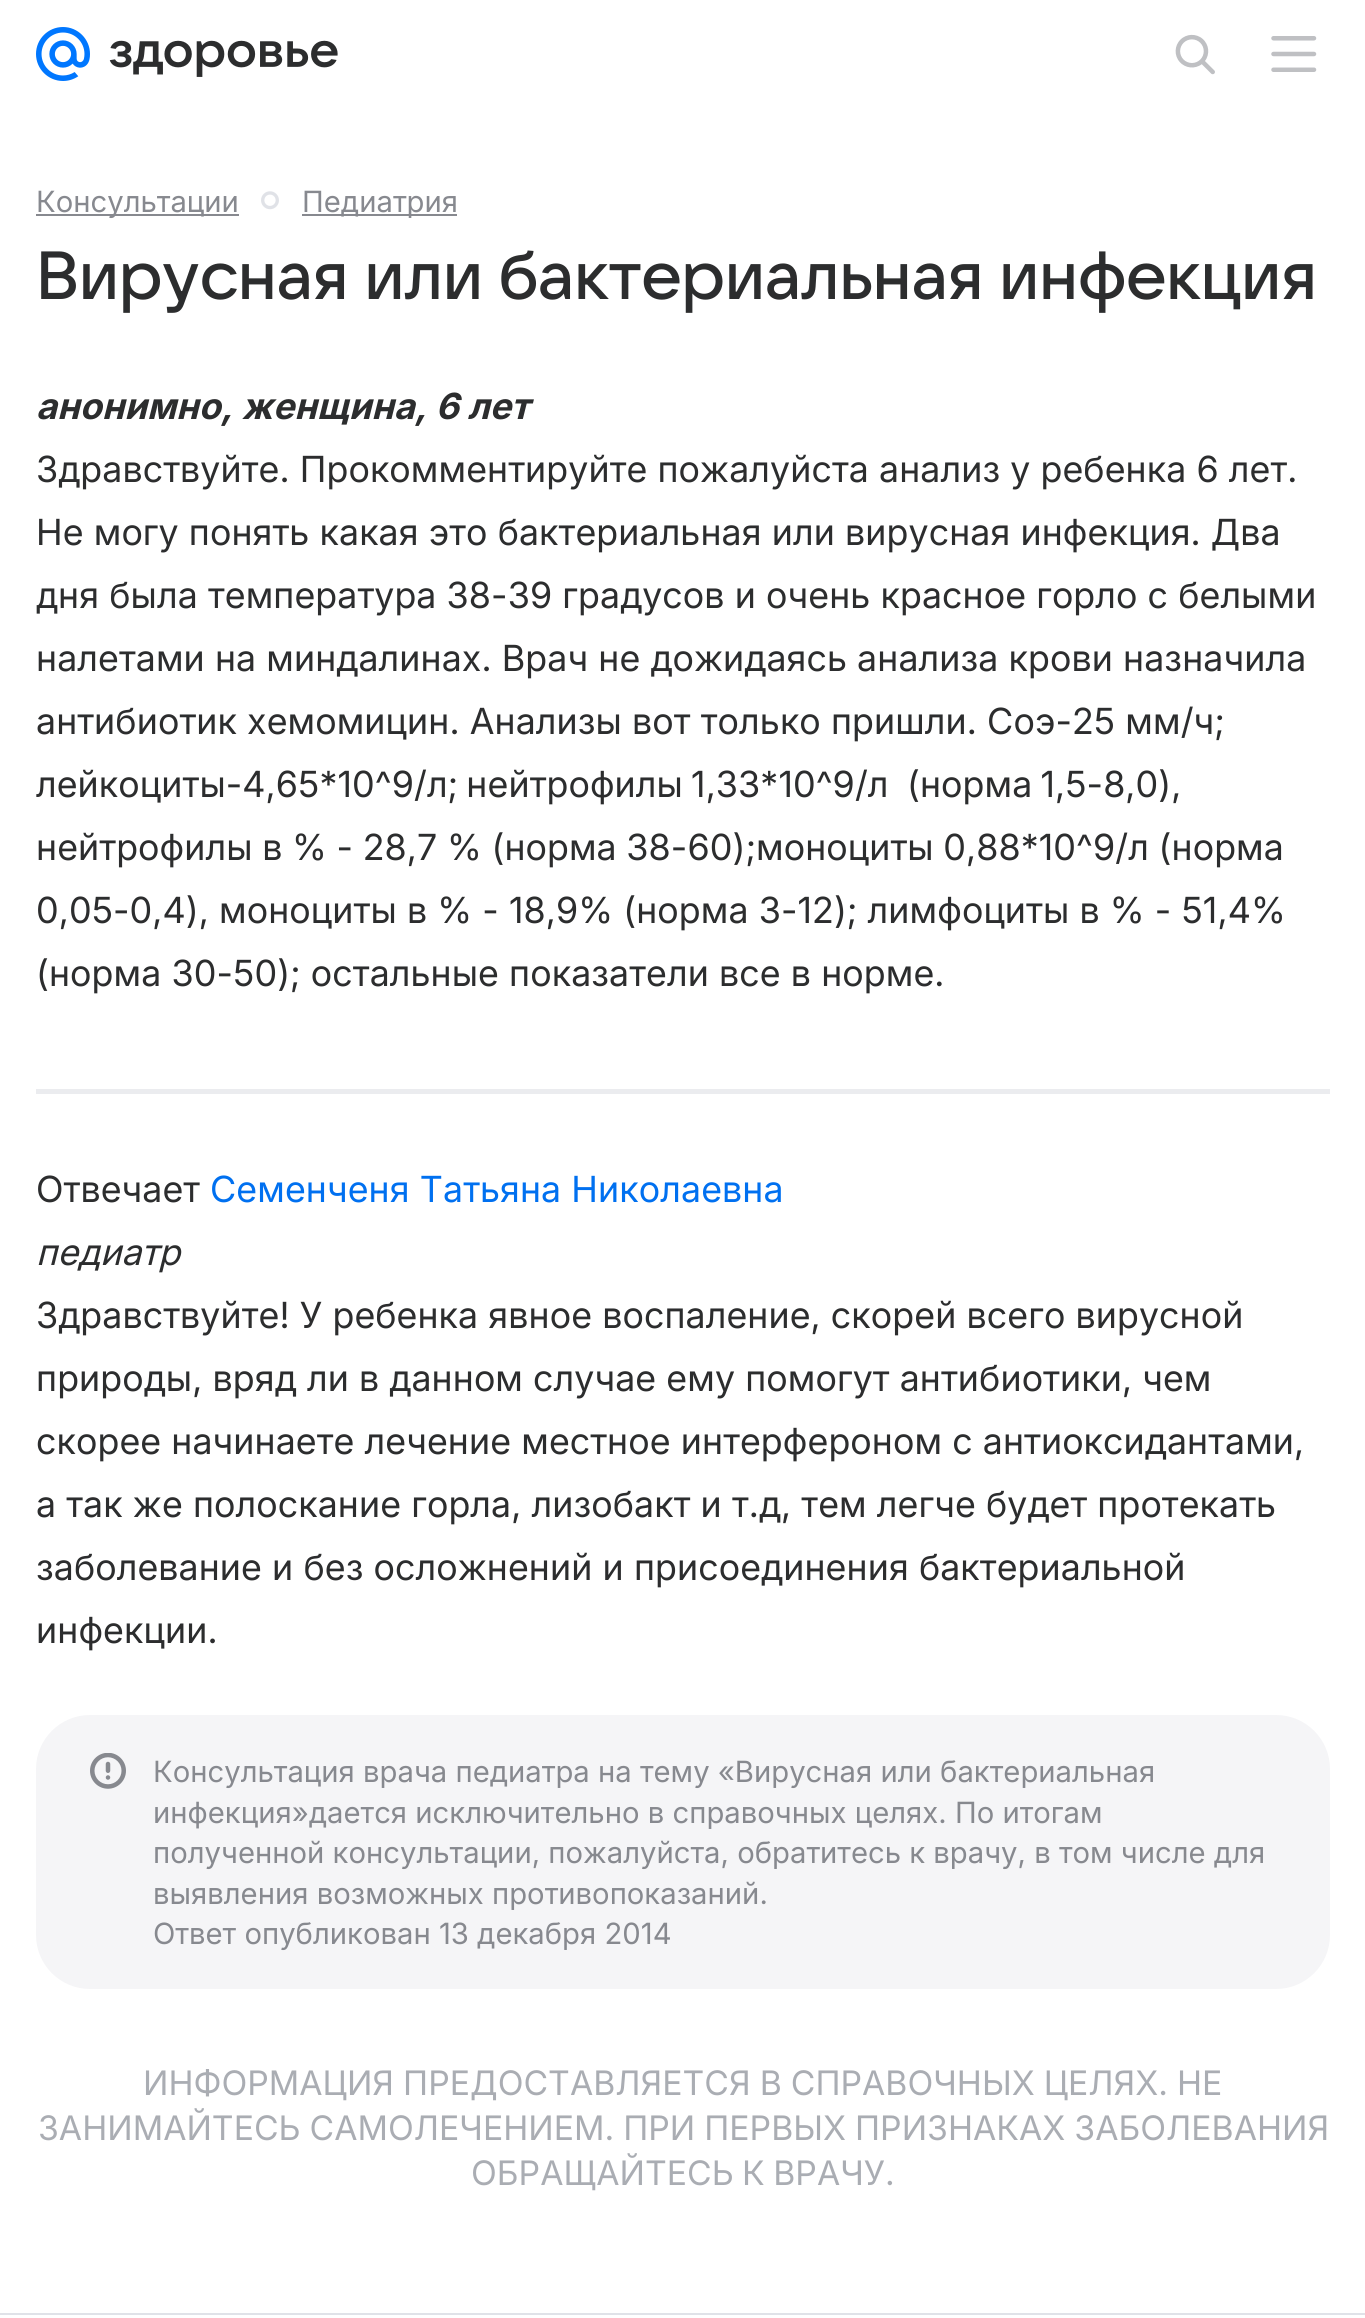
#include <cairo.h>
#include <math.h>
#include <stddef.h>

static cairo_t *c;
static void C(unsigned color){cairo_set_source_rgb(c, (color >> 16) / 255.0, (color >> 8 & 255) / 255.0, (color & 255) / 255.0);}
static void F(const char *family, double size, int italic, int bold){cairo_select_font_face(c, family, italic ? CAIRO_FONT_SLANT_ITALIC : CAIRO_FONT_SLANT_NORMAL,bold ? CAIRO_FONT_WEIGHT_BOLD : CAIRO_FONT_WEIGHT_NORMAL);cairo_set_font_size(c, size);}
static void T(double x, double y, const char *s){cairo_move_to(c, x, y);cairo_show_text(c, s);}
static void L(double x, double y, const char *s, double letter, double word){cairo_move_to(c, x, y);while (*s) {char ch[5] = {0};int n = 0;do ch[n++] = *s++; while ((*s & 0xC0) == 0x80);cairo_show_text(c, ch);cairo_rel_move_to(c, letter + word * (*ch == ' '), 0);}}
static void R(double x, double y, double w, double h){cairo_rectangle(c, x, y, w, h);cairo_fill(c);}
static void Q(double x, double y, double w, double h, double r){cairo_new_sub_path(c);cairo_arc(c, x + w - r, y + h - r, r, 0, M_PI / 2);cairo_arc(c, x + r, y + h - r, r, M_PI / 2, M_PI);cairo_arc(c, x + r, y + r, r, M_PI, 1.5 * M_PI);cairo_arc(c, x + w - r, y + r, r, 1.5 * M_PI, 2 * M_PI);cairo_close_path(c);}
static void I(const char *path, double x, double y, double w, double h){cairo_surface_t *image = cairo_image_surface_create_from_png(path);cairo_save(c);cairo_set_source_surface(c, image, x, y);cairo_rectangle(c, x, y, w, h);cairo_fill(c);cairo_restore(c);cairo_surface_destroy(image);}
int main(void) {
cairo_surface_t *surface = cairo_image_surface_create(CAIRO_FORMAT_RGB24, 1365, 2318);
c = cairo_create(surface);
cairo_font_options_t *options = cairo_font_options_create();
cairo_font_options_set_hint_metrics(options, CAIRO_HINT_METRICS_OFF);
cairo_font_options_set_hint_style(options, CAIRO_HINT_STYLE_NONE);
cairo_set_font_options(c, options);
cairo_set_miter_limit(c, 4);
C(0xffffff);
cairo_paint(c);
I("1.png",36,27,54,54);
I("2.png",109,40,229,37);
I("3.png",1175,34,40,41);
I("4.png",1271,36,46,36);
C(0x87898f);
R(36,214,203,2);
F("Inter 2",29.25,0,0);
T(36,212,"Консультации");
I("5.png",261,191,18,19);
R(302,214,155,2);
T(302,212,"Педиатрия");
F("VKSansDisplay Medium",67.5,0,0);
C(0x2c2d2e);
L(36,299,"Вирусная или бактериальная инфекция",-.35,0);
F("Inter",36,1,1);
L(36,419,"анонимно, женщина, 6 лет",.1,0);
F("Inter",36,0,0);
L(36,482,"Здравствуйте. Прокомментируйте пожалуйста анализ у ребенка 6 лет.",.1,0);
L(36,545,"Не могу понять какая это бактериальная или вирусная инфекция. Два",.1,0);
L(36,608,"дня была температура 38-39 градусов и очень красное горло с белыми",.1,0);
L(36,671,"налетами на миндалинах. Врач не дожидаясь анализа крови назначила",.1,0);
L(36,734,"антибиотик хемомицин. Анализы вот только пришли. Соэ-25 мм/ч;",.1,0);
L(36,797,"лейкоциты-4,65*10^9/л; нейтрофилы 1,33*10^9/л",.1,-2);
L(907,797,"(норма 1,5-8,0),",.1,-2);
L(36,860,"нейтрофилы в % - 28,7 % (норма 38-60);моноциты 0,88*10^9/л (норма",.1,-.5);
L(36,923,"0,05-0,4), моноциты в % - 18,9% (норма 3-12); лимфоциты в % - 51,4%",.1,0);
L(36,986,"(норма 30-50); остальные показатели все в норме.",.1,0);
C(0xebecef);
R(36,1089,1294,5);
C(0x2c2d2e);
L(36,1202,"Отвечает",.1,0);
C(0x0070f0);
L(210,1202,"Семенченя Татьяна Николаевна",.1,0);
F("Inter",36,1,0);
C(0x2c2d2e);
L(36,1265,"педиатр",.1,0);
F("Inter",36,0,0);
L(36,1328,"Здравствуйте! У ребенка явное воспаление, скорей всего вирусной",.1,0);
L(36,1391,"природы, вряд ли в данном случае ему помогут антибиотики, чем",.1,0);
L(36,1454,"скорее начинаете лечение местное интерфероном с антиоксидантами,",.1,0);
L(36,1517,"а так же полоскание горла, лизобакт и т.д, тем легче будет протекать",.1,0);
L(36,1580,"заболевание и без осложнений и присоединения бактериальной",.1,0);
L(36,1643,"инфекции.",.1,0);
C(0xf5f5f7);
Q(36,1715,1294,274,54);
cairo_fill(c);
I("6.png",90,1753,36,36);
F("Inter 2",29.25,0,0);
C(0x87898f);
T(153,1782,"Консультация врача педиатра на тему «Вирусная или бактериальная");
T(153,1823,"инфекция»дается исключительно в справочных целях. По итогам");
T(153,1863,"полученной консультации, пожалуйста, обратитесь к врачу, в том числе для");
T(153,1904,"выявления возможных противопоказаний.");
T(153,1944,"Ответ опубликован 13 декабря 2014");
F("Inter 2",33.75,0,0);
C(0xaaadb3);
L(143,2095,"ИНФОРМАЦИЯ ПРЕДОСТАВЛЯЕТСЯ В СПРАВОЧНЫХ ЦЕЛЯХ. НЕ",0,-.5);
L(38,2140,"ЗАНИМАЙТЕСЬ САМОЛЕЧЕНИЕМ. ПРИ ПЕРВЫХ ПРИЗНАКАХ ЗАБОЛЕВАНИЯ",0,-.5);
L(471,2185,"ОБРАЩАЙТЕСЬ К ВРАЧУ.",0,-1);
C(0xe0e2e8);
R(0,2313,1365,2);
cairo_surface_write_to_png(surface, "o.png");
cairo_font_options_destroy(options);
cairo_destroy(c);
cairo_surface_destroy(surface);
return 0;
}
